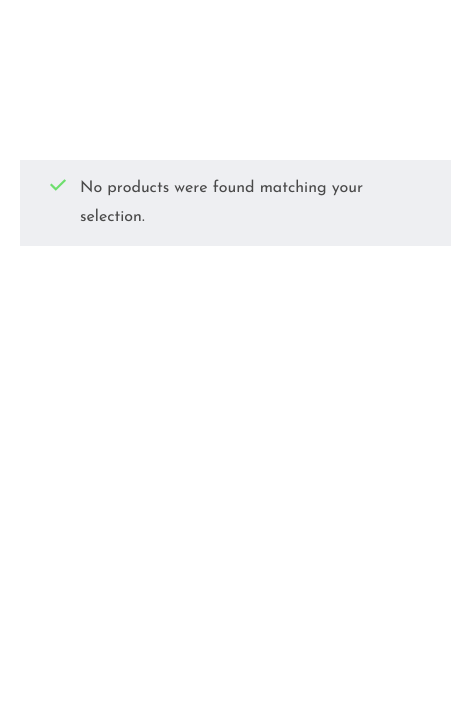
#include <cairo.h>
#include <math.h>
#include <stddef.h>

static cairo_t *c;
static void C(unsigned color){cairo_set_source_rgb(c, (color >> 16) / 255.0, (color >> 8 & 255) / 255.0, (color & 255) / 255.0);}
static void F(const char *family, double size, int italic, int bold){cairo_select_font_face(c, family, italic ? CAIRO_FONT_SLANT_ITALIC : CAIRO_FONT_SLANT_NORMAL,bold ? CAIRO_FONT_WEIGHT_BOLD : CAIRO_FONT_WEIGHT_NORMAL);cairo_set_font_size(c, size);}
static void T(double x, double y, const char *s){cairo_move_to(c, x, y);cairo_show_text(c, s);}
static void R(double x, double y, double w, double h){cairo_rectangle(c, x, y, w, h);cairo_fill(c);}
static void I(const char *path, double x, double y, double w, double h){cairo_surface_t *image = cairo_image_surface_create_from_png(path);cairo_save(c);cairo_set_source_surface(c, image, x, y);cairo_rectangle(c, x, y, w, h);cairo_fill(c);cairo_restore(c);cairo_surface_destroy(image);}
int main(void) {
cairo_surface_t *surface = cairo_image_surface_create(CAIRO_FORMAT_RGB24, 471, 701);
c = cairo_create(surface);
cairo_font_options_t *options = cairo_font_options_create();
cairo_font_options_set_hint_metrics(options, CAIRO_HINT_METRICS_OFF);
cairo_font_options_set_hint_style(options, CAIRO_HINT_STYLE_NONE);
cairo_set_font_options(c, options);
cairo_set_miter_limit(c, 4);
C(0xffffff);
cairo_paint(c);
C(0xeeeff2);
R(20,160,431,86);
I("1.png",50,179,16,12);
F("Josefin Sans",16,0,0);
C(0x494949);
T(80,192,"No products were found matching your");
T(80,221,"selection.");
cairo_surface_write_to_png(surface, "o.png");
cairo_font_options_destroy(options);
cairo_destroy(c);
cairo_surface_destroy(surface);
return 0;
}
